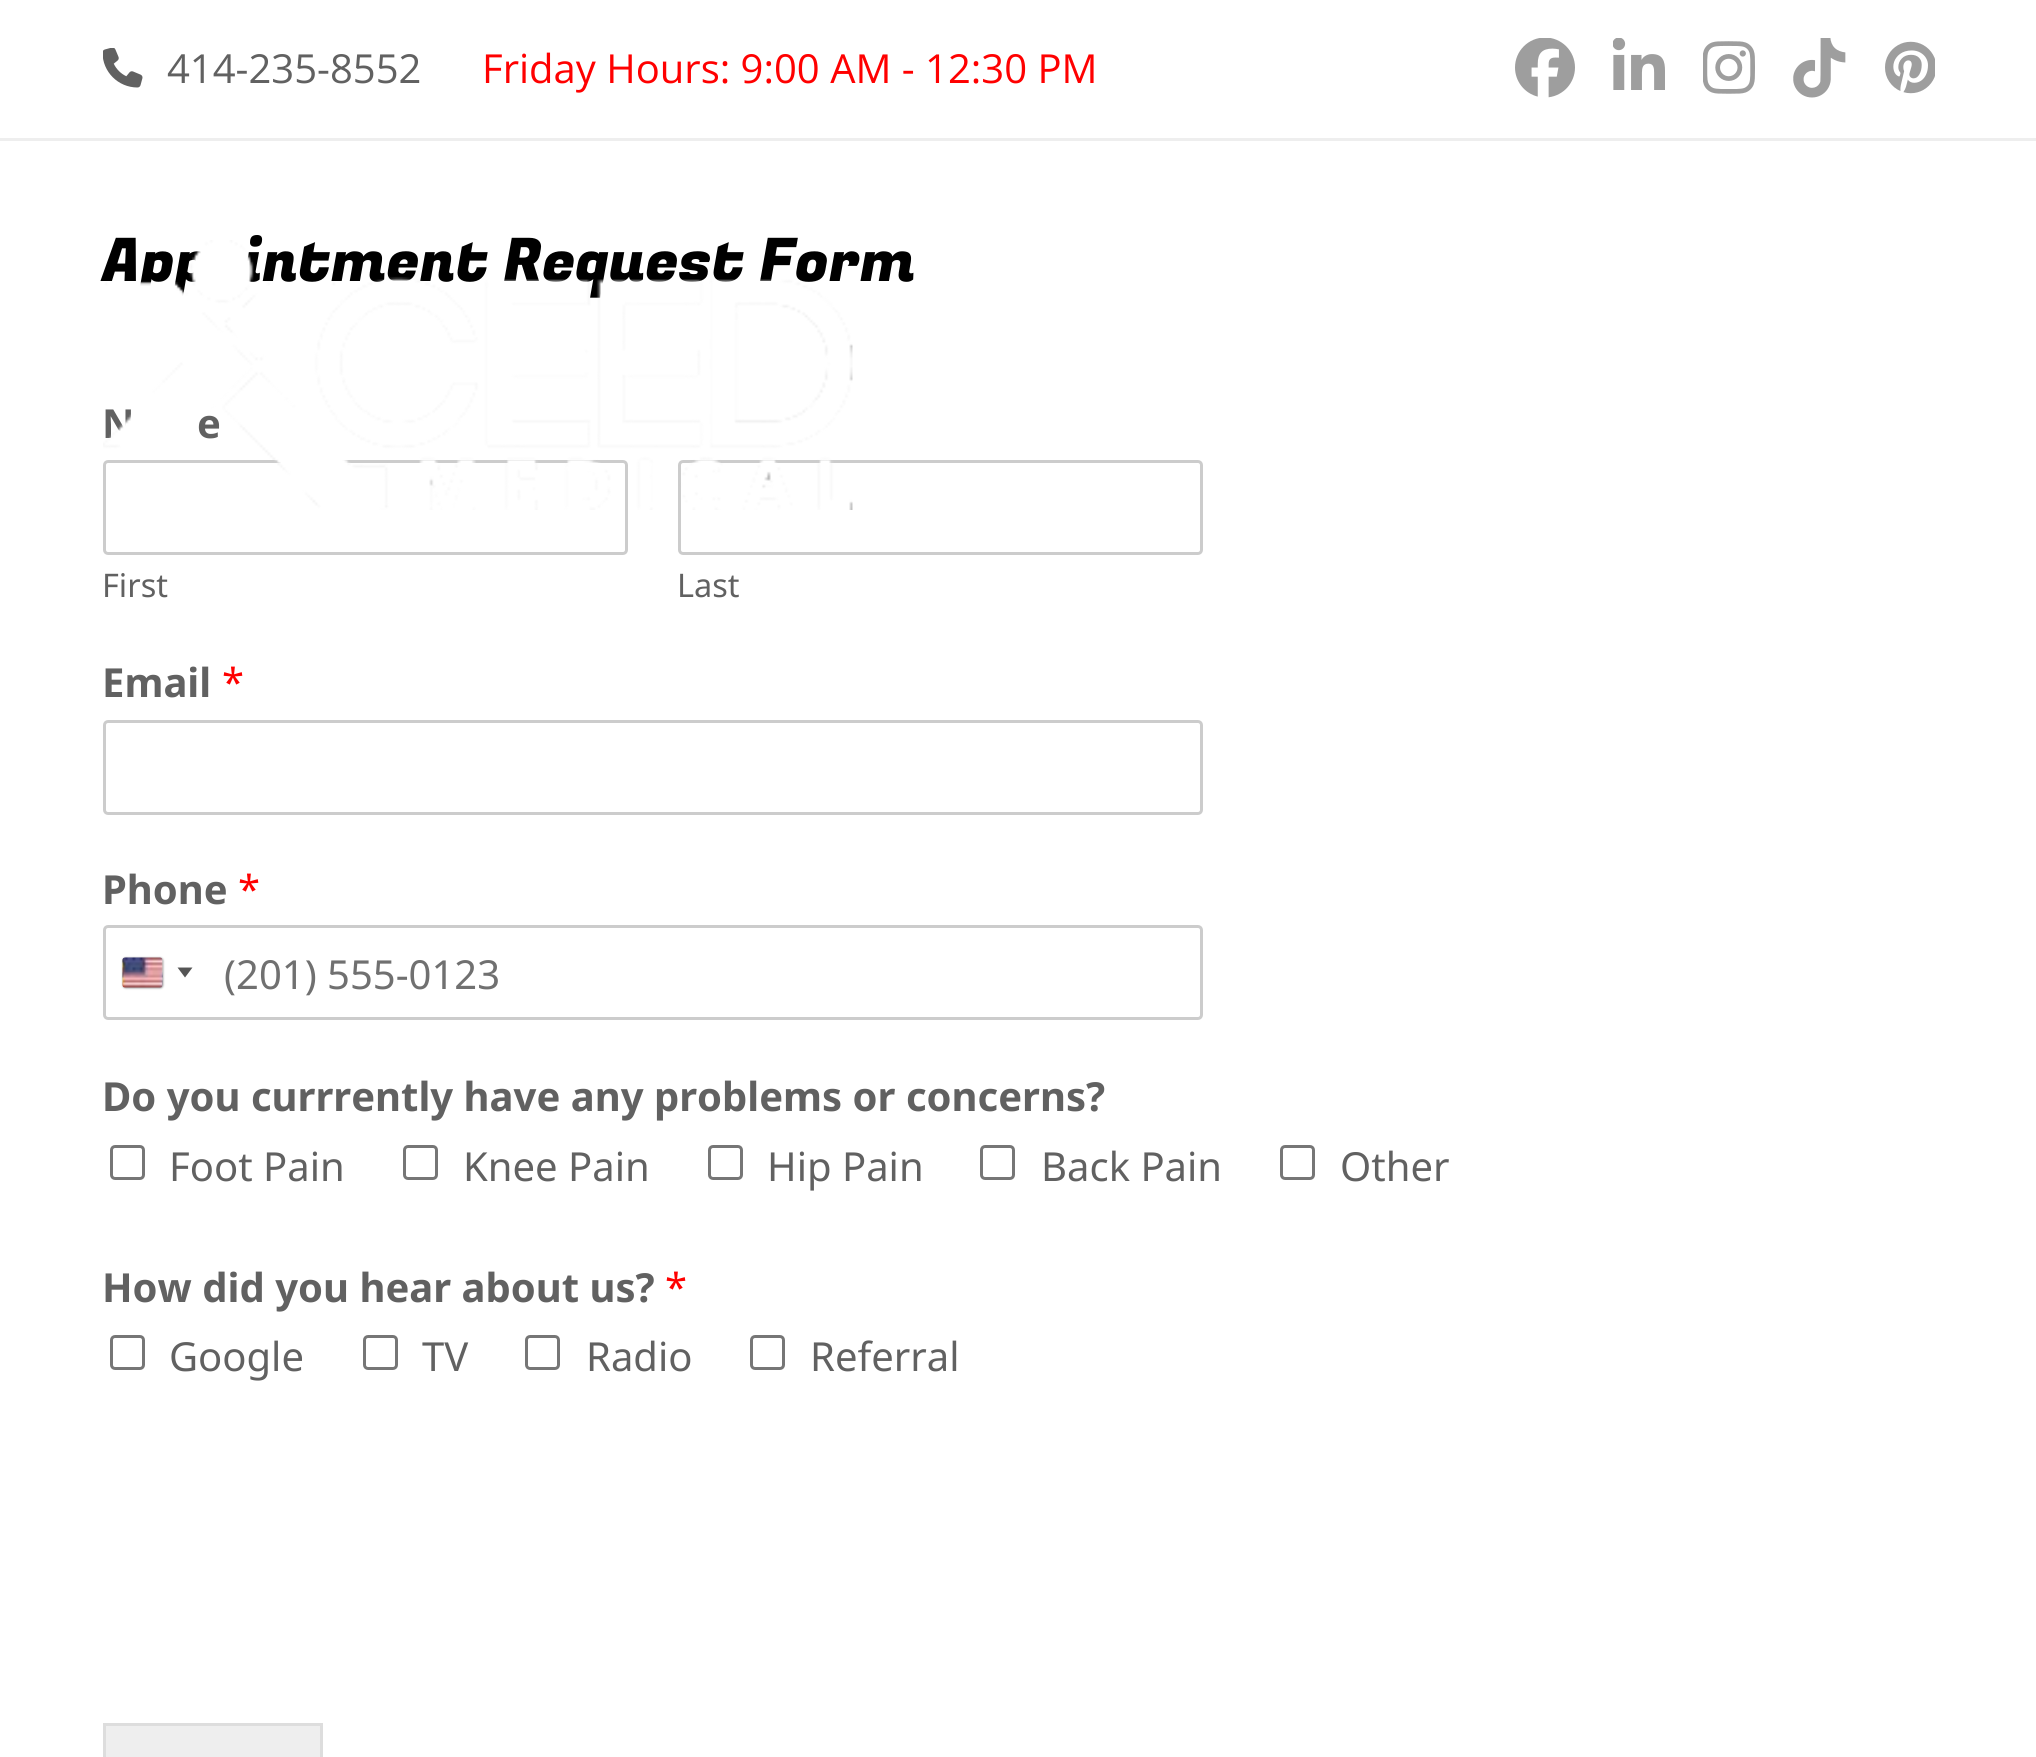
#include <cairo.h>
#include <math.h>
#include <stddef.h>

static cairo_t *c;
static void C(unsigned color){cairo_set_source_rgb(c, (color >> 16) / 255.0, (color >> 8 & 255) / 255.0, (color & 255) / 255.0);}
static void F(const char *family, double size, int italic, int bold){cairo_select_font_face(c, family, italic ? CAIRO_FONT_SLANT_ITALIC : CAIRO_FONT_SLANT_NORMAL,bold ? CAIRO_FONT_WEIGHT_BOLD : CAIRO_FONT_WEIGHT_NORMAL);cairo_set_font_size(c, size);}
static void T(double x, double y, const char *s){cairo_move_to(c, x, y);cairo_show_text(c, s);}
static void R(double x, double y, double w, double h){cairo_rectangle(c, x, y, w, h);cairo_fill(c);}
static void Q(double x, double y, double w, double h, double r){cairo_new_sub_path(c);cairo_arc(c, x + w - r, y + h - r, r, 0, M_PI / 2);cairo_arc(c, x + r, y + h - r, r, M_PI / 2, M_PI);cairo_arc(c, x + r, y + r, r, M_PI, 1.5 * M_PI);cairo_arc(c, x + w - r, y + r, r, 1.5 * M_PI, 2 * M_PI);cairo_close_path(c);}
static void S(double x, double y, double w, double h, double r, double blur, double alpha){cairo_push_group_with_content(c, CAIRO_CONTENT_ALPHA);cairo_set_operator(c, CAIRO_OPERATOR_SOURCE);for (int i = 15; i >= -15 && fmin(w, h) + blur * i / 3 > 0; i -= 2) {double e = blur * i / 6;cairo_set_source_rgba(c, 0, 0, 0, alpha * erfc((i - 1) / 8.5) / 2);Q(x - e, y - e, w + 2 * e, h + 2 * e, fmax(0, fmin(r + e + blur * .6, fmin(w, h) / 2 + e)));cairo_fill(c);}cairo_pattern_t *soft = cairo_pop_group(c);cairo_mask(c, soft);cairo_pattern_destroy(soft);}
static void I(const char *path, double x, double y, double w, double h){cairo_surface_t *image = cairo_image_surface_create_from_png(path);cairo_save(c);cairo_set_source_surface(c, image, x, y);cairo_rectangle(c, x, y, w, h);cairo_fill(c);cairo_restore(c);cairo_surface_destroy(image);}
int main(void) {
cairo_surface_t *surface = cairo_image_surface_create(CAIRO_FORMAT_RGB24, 2036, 1757);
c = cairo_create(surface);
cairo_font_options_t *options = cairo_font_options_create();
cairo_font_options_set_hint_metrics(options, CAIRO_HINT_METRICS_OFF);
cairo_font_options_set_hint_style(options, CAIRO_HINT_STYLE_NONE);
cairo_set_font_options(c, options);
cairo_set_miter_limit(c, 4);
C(0xffffff);
cairo_paint(c);
C(0xeeeeee);
R(0,138,2036,3);
I("1.png",103,48,40,40);
F("Open Sans",40,0,0);
C(0x616161);
T(167,83,"414-235-8552");
C(0xff0000);
T(482,83,"Friday Hours: 9:00 AM - 12:30 PM");
I("2.png",1515,38,60,60);
I("3.png",1613,38,52,52);
I("4.png",1703,41,52,53);
I("5.png",1793,38,53,60);
I("6.png",1885,41,50,53);
F("Fugaz One",60,0,0);
C(0x000000);
T(102,281,"Appointment Request Form");
F("Noto Sans",40,0,1);
C(0x616161);
T(102,438,"N");
T(197,438,"e");
Q(104.5,461.5,522,92,3.5);
C(0xcccccc);
cairo_set_line_width(c,3);
cairo_stroke(c);
F("Noto Sans",32.5,0,0);
C(0x616161);
T(102,597,"First");
Q(679.5,461.5,522,92,3.5);
C(0xcccccc);
cairo_stroke(c);
C(0x616161);
T(677,597,"Last");
F("Noto Sans",40,0,1);
T(102,697,"Email");
F("Noto Sans",40,0,0);
C(0xff0000);
T(222,697,"*");
Q(104.5,721.5,1097,92,3.5);
C(0xcccccc);
cairo_stroke(c);
F("Noto Sans",40,0,1);
C(0x616161);
T(102,904,"Phone");
F("Noto Sans",40,0,0);
C(0xff0000);
T(238,904,"*");
Q(104.5,926.5,1097,92,3.5);
C(0xcccccc);
cairo_stroke(c);
C(0x888888);
S(123,958,40,30,2.5,1,1);
I("7.png",122,957,41,31);
C(0x555555);
cairo_new_path(c);
cairo_move_to(c,177.5,967.5);
cairo_line_to(c,192.5,967.5);
cairo_line_to(c,185,977.5);
cairo_close_path(c);
cairo_fill(c);
C(0x707070);
T(224,989,"(201) 555-0123");
F("Noto Sans",40,0,1);
C(0x616161);
T(102,1111,"Do you currrently have any problems or concerns?");
Q(111.5,1146.5,32,32,3.5);
C(0x767676);
cairo_stroke(c);
F("Noto Sans",40,0,0);
C(0x616161);
T(169,1181,"Foot Pain");
Q(404.5,1146.5,32,32,3.5);
C(0x767676);
cairo_stroke(c);
C(0x616161);
T(463,1181,"Knee Pain");
Q(709.5,1146.5,32,32,3.5);
C(0x767676);
cairo_stroke(c);
C(0x616161);
T(767,1181,"Hip Pain");
Q(981.5,1146.5,32,32,3.5);
C(0x767676);
cairo_stroke(c);
C(0x616161);
T(1041,1181,"Back Pain");
Q(1281.5,1146.5,32,32,3.5);
C(0x767676);
cairo_stroke(c);
C(0x616161);
T(1340,1181,"Other");
F("Noto Sans",40,0,1);
T(102,1302,"How did you hear about us?");
F("Noto Sans",40,0,0);
C(0xff0000);
T(665,1302,"*");
Q(111.5,1336.5,32,32,3.5);
C(0x767676);
cairo_stroke(c);
C(0x616161);
T(169,1371,"Google");
Q(364.5,1336.5,32,32,3.5);
C(0x767676);
cairo_stroke(c);
C(0x616161);
T(422,1371,"TV");
Q(526.5,1336.5,32,32,3.5);
C(0x767676);
cairo_stroke(c);
C(0x616161);
T(586,1371,"Radio");
Q(751.5,1336.5,32,32,3.5);
C(0x767676);
cairo_stroke(c);
C(0x616161);
T(810,1371,"Referral");
C(0xeeeeee);
cairo_rectangle(c,104.5,1724.5,217,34);
cairo_fill_preserve(c);
C(0xdddddd);
cairo_stroke(c);
I("8.png",103,240,750,270);
cairo_surface_write_to_png(surface, "o.png");
cairo_font_options_destroy(options);
cairo_destroy(c);
cairo_surface_destroy(surface);
return 0;
}
